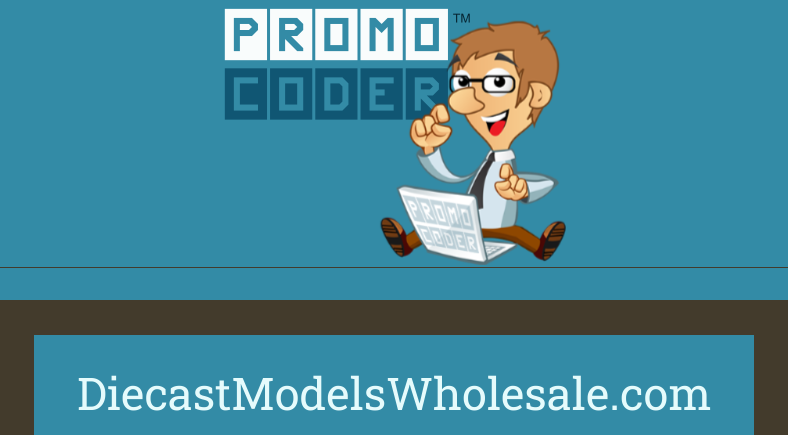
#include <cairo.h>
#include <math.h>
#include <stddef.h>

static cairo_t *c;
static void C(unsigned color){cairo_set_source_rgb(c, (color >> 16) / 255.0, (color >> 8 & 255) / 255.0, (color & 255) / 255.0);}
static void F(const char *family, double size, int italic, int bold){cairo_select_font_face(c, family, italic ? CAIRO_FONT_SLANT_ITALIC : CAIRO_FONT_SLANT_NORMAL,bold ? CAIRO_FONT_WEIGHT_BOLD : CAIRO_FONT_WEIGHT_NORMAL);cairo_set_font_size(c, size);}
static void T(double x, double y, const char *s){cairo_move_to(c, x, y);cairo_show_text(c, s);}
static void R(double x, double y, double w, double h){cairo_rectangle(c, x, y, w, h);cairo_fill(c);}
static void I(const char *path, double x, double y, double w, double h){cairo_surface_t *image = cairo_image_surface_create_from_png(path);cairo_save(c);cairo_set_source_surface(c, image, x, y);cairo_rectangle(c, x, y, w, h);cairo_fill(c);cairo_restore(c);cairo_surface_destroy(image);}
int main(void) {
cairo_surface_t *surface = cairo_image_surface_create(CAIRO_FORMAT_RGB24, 788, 435);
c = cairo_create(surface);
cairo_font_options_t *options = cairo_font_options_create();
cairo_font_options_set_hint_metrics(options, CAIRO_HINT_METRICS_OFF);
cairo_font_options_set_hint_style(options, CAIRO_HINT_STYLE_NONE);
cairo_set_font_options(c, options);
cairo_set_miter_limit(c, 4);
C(0x433b2c);
cairo_paint(c);
C(0x338ba6);
R(0,0,788,267);
I("1.png",224,8,342,257);
R(0,268,788,32);
R(34,335,720,100);
F("Roboto Slab",45,0,0);
C(0xe5fbfc);
T(77,410,"DiecastModelsWholesale.com");
cairo_surface_write_to_png(surface, "o.png");
cairo_font_options_destroy(options);
cairo_destroy(c);
cairo_surface_destroy(surface);
return 0;
}
